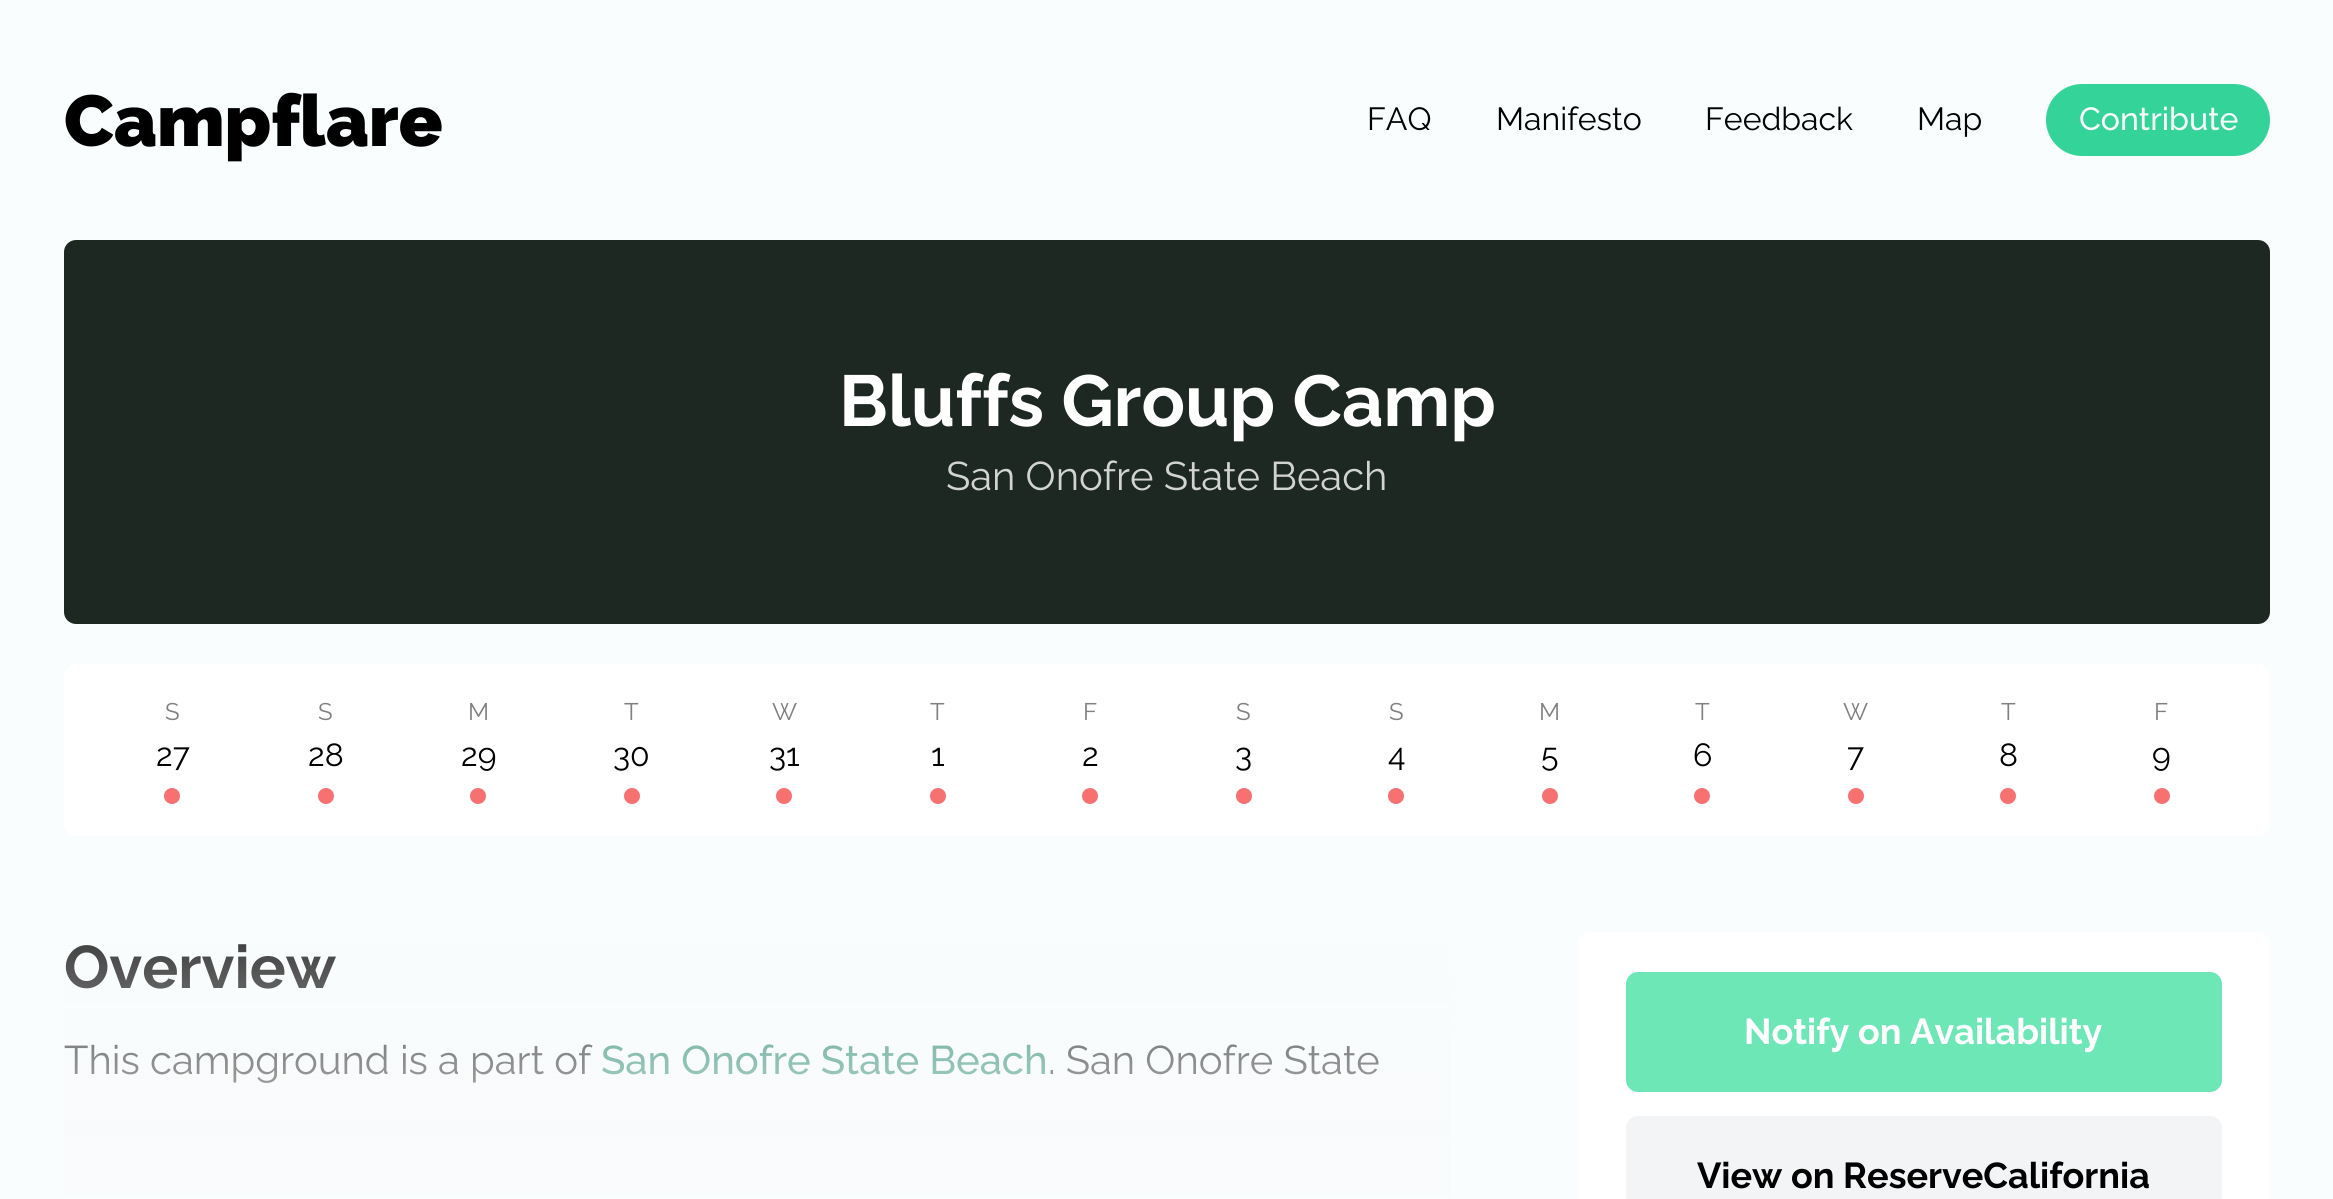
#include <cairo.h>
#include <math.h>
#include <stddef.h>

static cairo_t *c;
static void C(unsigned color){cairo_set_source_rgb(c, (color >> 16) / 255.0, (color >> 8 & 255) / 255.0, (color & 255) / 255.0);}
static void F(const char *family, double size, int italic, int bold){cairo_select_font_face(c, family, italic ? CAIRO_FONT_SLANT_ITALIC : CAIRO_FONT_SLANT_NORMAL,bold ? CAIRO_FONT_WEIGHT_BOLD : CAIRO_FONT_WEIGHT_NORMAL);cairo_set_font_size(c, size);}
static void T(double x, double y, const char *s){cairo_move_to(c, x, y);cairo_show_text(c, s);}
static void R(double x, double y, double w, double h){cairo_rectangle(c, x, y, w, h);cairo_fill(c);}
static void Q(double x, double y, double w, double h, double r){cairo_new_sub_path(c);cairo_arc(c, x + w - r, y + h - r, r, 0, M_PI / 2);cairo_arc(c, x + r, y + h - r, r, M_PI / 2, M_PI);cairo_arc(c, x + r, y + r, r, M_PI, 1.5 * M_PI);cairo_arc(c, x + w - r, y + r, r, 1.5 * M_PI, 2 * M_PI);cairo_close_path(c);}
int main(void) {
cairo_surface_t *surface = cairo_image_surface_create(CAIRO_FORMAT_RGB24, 2333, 1199);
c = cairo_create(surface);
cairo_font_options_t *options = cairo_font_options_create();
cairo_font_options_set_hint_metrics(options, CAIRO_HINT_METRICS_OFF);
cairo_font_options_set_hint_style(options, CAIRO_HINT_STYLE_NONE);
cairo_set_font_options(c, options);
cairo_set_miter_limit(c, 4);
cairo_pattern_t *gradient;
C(0xf9fdfd);
cairo_paint(c);
F("Raleway Black",72,0,0);
C(0x000000);
T(64,146,"Campflare");
F("Raleway",32,0,0);
T(1367,130,"FAQ");
T(1496,130,"Manifesto");
T(1705,130,"Feedback");
T(1917,130,"Map");
C(0x34d399);
Q(2046,84,224,72,36);
cairo_fill(c);
F("Raleway Medium",32,0,0);
C(0xf9fafb);
T(2079,130,"Contribute");
C(0x1e2822);
Q(64,240,2206,384,12);
cairo_fill(c);
F("Raleway",72,0,1);
C(0xffffff);
T(839,426,"Bluffs Group Camp");
F("Raleway",40,0,0);
C(0xd2d4d3);
T(946,490,"San Onofre State Beach");
C(0xffffff);
Q(64,664,2206,172,12);
cairo_fill(c);
F("Raleway",24,0,0);
C(0x808080);
T(165,720,"S");
F("Raleway",32,0,0);
C(0x000000);
T(156,766,"27");
C(0xf87171);
cairo_new_path(c);
cairo_arc(c,172,796,8,0,2 * M_PI);
cairo_fill(c);
F("Raleway",24,0,0);
C(0x808080);
T(318,720,"S");
F("Raleway",32,0,0);
C(0x000000);
T(308,766,"28");
C(0xf87171);
cairo_new_path(c);
cairo_arc(c,326,796,8,0,2 * M_PI);
cairo_fill(c);
F("Raleway",24,0,0);
C(0x808080);
T(468,720,"M");
F("Raleway",32,0,0);
C(0x000000);
T(461,766,"29");
C(0xf87171);
cairo_new_path(c);
cairo_arc(c,478,796,8,0,2 * M_PI);
cairo_fill(c);
F("Raleway",24,0,0);
C(0x808080);
T(624,720,"T");
F("Raleway",32,0,0);
C(0x000000);
T(613,766,"30");
C(0xf87171);
cairo_new_path(c);
cairo_arc(c,632,796,8,0,2 * M_PI);
cairo_fill(c);
F("Raleway",24,0,0);
C(0x808080);
T(772,720,"W");
F("Raleway",32,0,0);
C(0x000000);
T(769,766,"31");
C(0xf87171);
cairo_new_path(c);
cairo_arc(c,784,796,8,0,2 * M_PI);
cairo_fill(c);
F("Raleway",24,0,0);
C(0x808080);
T(930,720,"T");
F("Raleway",32,0,0);
C(0x000000);
T(931,766,"1");
C(0xf87171);
cairo_new_path(c);
cairo_arc(c,938,796,8,0,2 * M_PI);
cairo_fill(c);
F("Raleway",24,0,0);
C(0x808080);
T(1083,720,"F");
F("Raleway",32,0,0);
C(0x000000);
T(1082,766,"2");
C(0xf87171);
cairo_new_path(c);
cairo_arc(c,1090,796,8,0,2 * M_PI);
cairo_fill(c);
F("Raleway",24,0,0);
C(0x808080);
T(1236,720,"S");
F("Raleway",32,0,0);
C(0x000000);
T(1235,766,"3");
C(0xf87171);
cairo_new_path(c);
cairo_arc(c,1244,796,8,0,2 * M_PI);
cairo_fill(c);
F("Raleway",24,0,0);
C(0x808080);
T(1389,720,"S");
F("Raleway",32,0,0);
C(0x000000);
T(1388,766,"4");
C(0xf87171);
cairo_new_path(c);
cairo_arc(c,1396,796,8,0,2 * M_PI);
cairo_fill(c);
F("Raleway",24,0,0);
C(0x808080);
T(1539,720,"M");
F("Raleway",32,0,0);
C(0x000000);
T(1541,766,"5");
C(0xf87171);
cairo_new_path(c);
cairo_arc(c,1550,796,8,0,2 * M_PI);
cairo_fill(c);
F("Raleway",24,0,0);
C(0x808080);
T(1695,720,"T");
F("Raleway",32,0,0);
C(0x000000);
T(1693,766,"6");
C(0xf87171);
cairo_new_path(c);
cairo_arc(c,1702,796,8,0,2 * M_PI);
cairo_fill(c);
F("Raleway",24,0,0);
C(0x808080);
T(1843,720,"W");
F("Raleway",32,0,0);
C(0x000000);
T(1847,766,"7");
C(0xf87171);
cairo_new_path(c);
cairo_arc(c,1856,796,8,0,2 * M_PI);
cairo_fill(c);
F("Raleway",24,0,0);
C(0x808080);
T(2001,720,"T");
F("Raleway",32,0,0);
C(0x000000);
T(1999,766,"8");
C(0xf87171);
cairo_new_path(c);
cairo_arc(c,2008,796,8,0,2 * M_PI);
cairo_fill(c);
F("Raleway",24,0,0);
C(0x808080);
T(2154,720,"F");
F("Raleway",32,0,0);
C(0x000000);
T(2152,766,"9");
C(0xf87171);
cairo_new_path(c);
cairo_arc(c,2162,796,8,0,2 * M_PI);
cairo_fill(c);
F("Raleway",60,0,1);
C(0x000000);
T(64,988,"Overview");
F("Raleway",40,0,0);
T(64,1074,"This campground is a part of");
F("Raleway Medium",40,0,0);
C(0x047857);
T(601,1074,"San Onofre State Beach");
F("Raleway",40,0,0);
C(0x000000);
T(1048,1074,". San Onofre State");
gradient = cairo_pattern_create_linear(757,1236,757,836);
cairo_pattern_add_color_stop_rgba(gradient,0,0.976,0.98,0.984,1);
cairo_pattern_add_color_stop_rgba(gradient,1,0.976,0.98,0.984,0);
cairo_set_source(c,gradient);
cairo_pattern_destroy(gradient);
R(64,944,1386,253);
C(0xffffff);
Q(1578,932,692,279,12);
cairo_fill(c);
C(0x6ee7b7);
Q(1626,972,596,120,12);
cairo_fill(c);
F("Raleway",36,0,1);
C(0xffffff);
T(1744,1044,"Notify on Availability");
C(0xf3f4f6);
Q(1626,1116,596,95,12);
cairo_fill(c);
C(0x000000);
T(1697,1188,"View on ReserveCalifornia");
cairo_surface_write_to_png(surface, "o.png");
cairo_font_options_destroy(options);
cairo_destroy(c);
cairo_surface_destroy(surface);
return 0;
}
